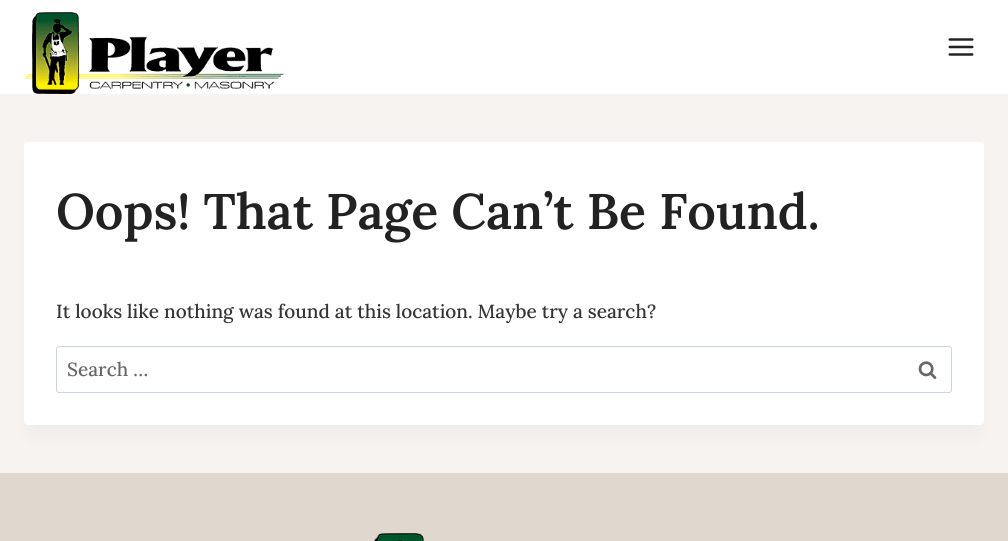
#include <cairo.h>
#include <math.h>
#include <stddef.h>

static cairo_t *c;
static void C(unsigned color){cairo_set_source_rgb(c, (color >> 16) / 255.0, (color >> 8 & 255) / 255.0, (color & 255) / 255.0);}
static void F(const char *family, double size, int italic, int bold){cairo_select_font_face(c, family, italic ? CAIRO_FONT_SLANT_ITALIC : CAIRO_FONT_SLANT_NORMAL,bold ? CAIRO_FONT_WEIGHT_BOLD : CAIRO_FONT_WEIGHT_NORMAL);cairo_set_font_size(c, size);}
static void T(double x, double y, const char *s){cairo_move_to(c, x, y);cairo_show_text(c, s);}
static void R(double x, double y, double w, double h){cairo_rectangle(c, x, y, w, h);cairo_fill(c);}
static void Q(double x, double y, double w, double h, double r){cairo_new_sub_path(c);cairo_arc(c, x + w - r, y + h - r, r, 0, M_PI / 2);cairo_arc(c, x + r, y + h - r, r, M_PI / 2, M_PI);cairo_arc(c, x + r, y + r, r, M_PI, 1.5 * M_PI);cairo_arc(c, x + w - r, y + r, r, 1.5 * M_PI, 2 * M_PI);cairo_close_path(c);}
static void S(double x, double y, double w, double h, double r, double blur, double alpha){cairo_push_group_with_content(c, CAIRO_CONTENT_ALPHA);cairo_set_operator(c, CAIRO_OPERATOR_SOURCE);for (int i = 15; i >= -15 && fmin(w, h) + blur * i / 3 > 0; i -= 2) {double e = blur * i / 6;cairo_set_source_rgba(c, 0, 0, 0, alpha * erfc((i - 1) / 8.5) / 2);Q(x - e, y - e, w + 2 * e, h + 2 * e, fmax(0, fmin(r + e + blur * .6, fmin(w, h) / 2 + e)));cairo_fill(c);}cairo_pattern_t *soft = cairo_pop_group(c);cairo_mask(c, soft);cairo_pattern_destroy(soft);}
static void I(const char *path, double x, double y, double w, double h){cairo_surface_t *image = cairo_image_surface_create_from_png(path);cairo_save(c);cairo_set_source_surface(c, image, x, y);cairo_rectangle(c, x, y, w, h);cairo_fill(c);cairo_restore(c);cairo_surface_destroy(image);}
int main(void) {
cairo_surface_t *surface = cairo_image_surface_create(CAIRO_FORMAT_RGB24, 1008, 541);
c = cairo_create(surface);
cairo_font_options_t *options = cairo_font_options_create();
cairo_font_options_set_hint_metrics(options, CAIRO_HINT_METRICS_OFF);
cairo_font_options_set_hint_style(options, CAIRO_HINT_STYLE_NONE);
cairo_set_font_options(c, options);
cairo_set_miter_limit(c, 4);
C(0xf6f3f0);
cairo_paint(c);
C(0xffffff);
R(0,0,1008,94);
I("1.png",24,12,260,82);
I("2.png",948,38,26,18);
C(0x000000);
S(34,167,940,263,0,12.5,.05);
C(0xffffff);
Q(24,142,960,283,4);
cairo_fill(c);
F("Lora SemiBold",50,0,0);
C(0x222222);
T(56,229,"Oops! That Page Can’t Be Found.");
F("Lora Medium",19,0,0);
C(0x353535);
T(56,318,"It looks like nothing was found at this location. Maybe try a search?");
Q(56.5,346.5,895,46,2.5);
C(0xcbd5e0);
cairo_set_line_width(c,1);
cairo_stroke(c);
C(0x676767);
T(67,376,"Search …");
I("3.png",918,361,19,18);
C(0xe0d8ce);
R(0,473,1008,68);
I("4.png",374,533,50,8);
cairo_surface_write_to_png(surface, "o.png");
cairo_font_options_destroy(options);
cairo_destroy(c);
cairo_surface_destroy(surface);
return 0;
}
